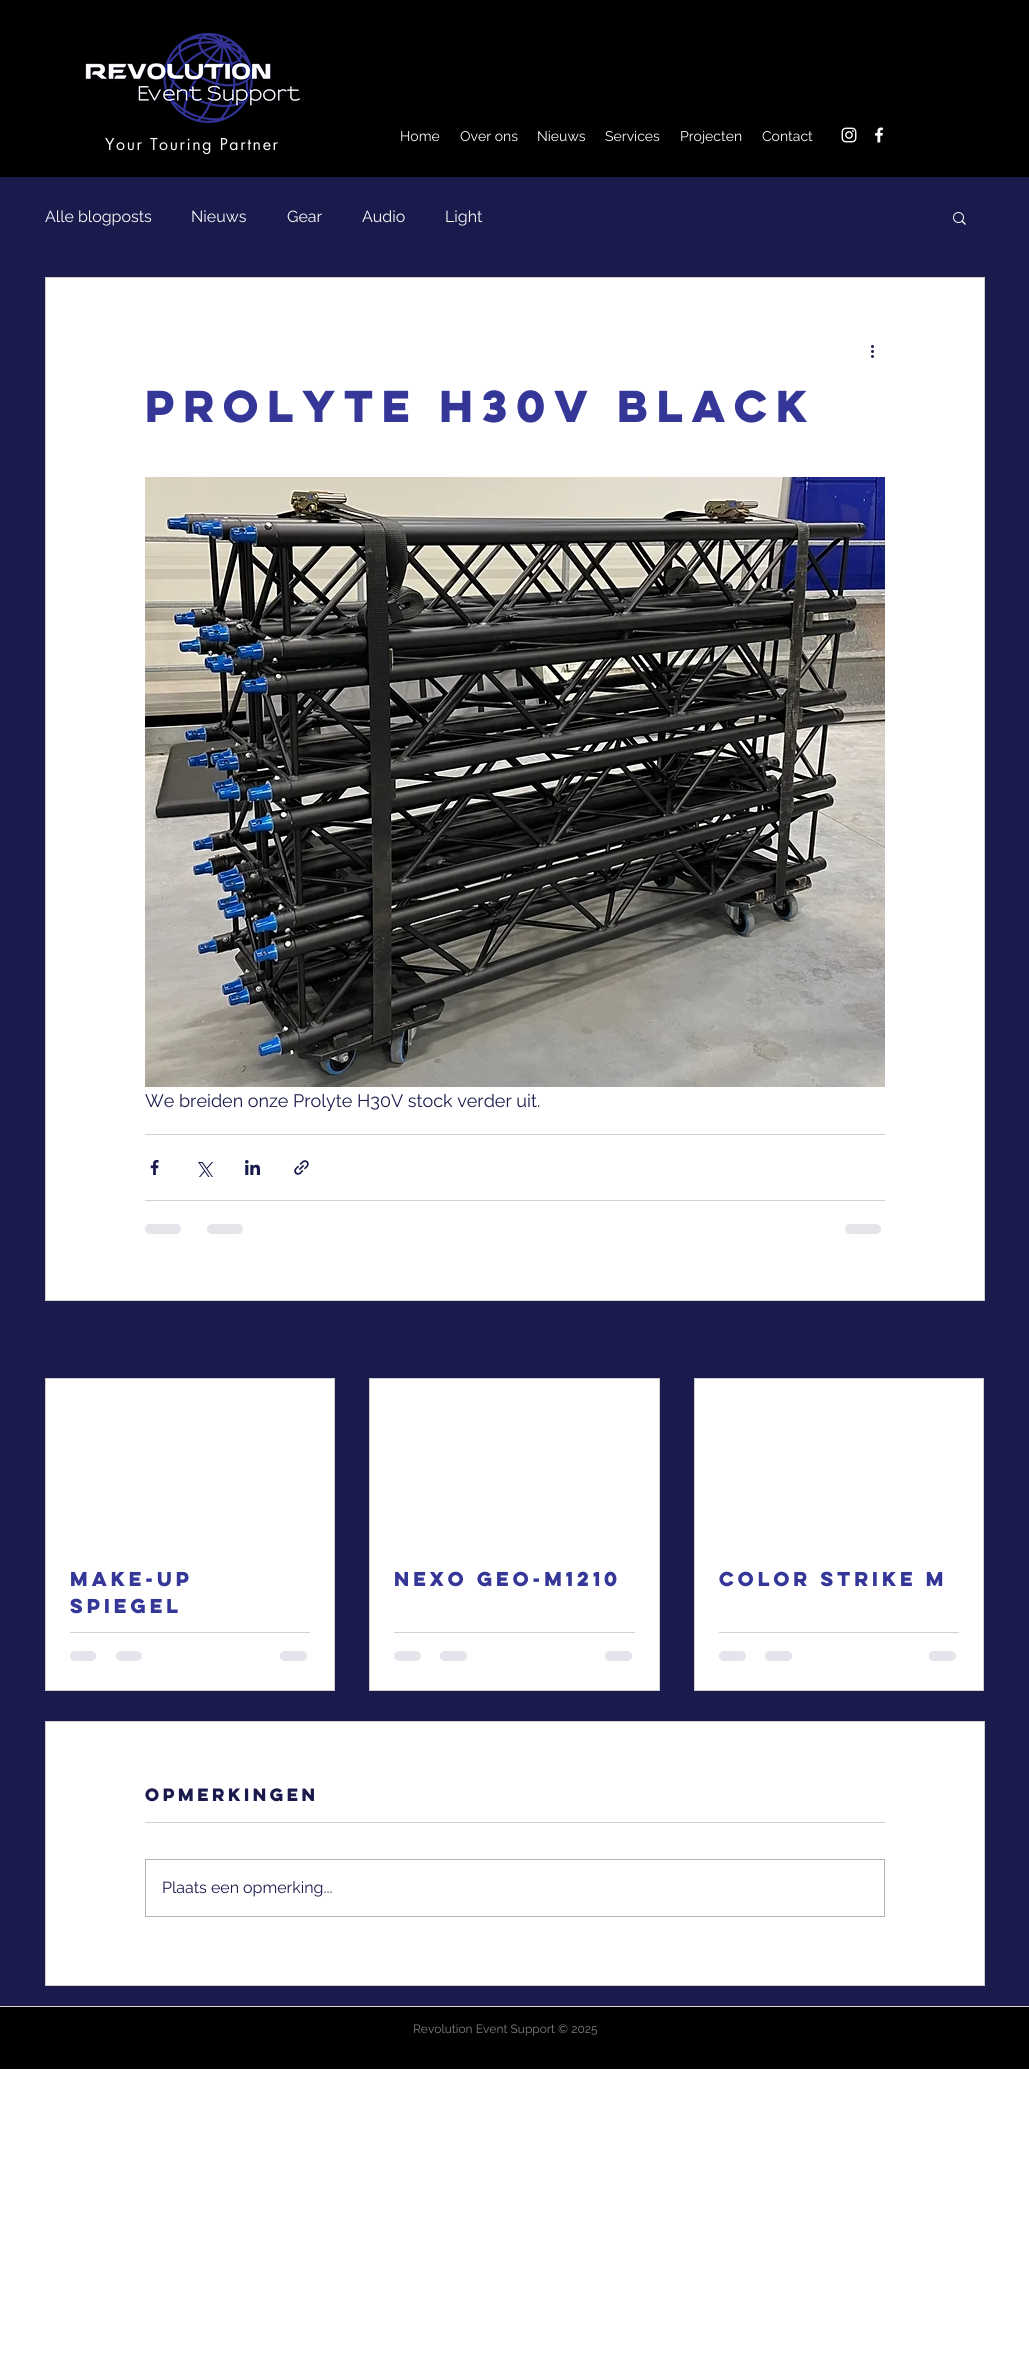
#include <cairo.h>
#include <math.h>
#include <stddef.h>

static cairo_t *c;
static void C(unsigned color){cairo_set_source_rgb(c, (color >> 16) / 255.0, (color >> 8 & 255) / 255.0, (color & 255) / 255.0);}
static void F(const char *family, double size, int italic, int bold){cairo_select_font_face(c, family, italic ? CAIRO_FONT_SLANT_ITALIC : CAIRO_FONT_SLANT_NORMAL,bold ? CAIRO_FONT_WEIGHT_BOLD : CAIRO_FONT_WEIGHT_NORMAL);cairo_set_font_size(c, size);}
static void T(double x, double y, const char *s){cairo_move_to(c, x, y);cairo_show_text(c, s);}
static void L(double x, double y, const char *s, double letter, double word){cairo_move_to(c, x, y);while (*s) {char ch[5] = {0};int n = 0;do ch[n++] = *s++; while ((*s & 0xC0) == 0x80);cairo_show_text(c, ch);cairo_rel_move_to(c, letter + word * (*ch == ' '), 0);}}
static void R(double x, double y, double w, double h){cairo_rectangle(c, x, y, w, h);cairo_fill(c);}
static void Q(double x, double y, double w, double h, double r){cairo_new_sub_path(c);cairo_arc(c, x + w - r, y + h - r, r, 0, M_PI / 2);cairo_arc(c, x + r, y + h - r, r, M_PI / 2, M_PI);cairo_arc(c, x + r, y + r, r, M_PI, 1.5 * M_PI);cairo_arc(c, x + w - r, y + r, r, 1.5 * M_PI, 2 * M_PI);cairo_close_path(c);}
static void I(const char *path, double x, double y, double w, double h){cairo_surface_t *image = cairo_image_surface_create_from_png(path);cairo_save(c);cairo_set_source_surface(c, image, x, y);cairo_rectangle(c, x, y, w, h);cairo_fill(c);cairo_restore(c);cairo_surface_destroy(image);}
int main(void) {
cairo_surface_t *surface = cairo_image_surface_create(CAIRO_FORMAT_RGB24, 1029, 2378);
c = cairo_create(surface);
cairo_font_options_t *options = cairo_font_options_create();
cairo_font_options_set_hint_metrics(options, CAIRO_HINT_METRICS_OFF);
cairo_font_options_set_hint_style(options, CAIRO_HINT_STYLE_NONE);
cairo_set_font_options(c, options);
cairo_set_miter_limit(c, 4);
C(0xffffff);
cairo_paint(c);
C(0x000000);
R(0,0,1029,177);
I("1.png",85,33,217,90);
F("futura",16,0,0);
C(0xfbfbfb);
L(105,150,"Your Touring Partner",1.6,0);
F("Raleway",14,0,0);
T(400,141,"Home");
T(460,141,"Over ons");
T(537,141,"Nieuws");
T(605,141,"Services");
T(680,141,"Projecten");
T(762,141,"Contact");
I("2.png",841,127,16,16);
I("3.png",875,127,9,16);
C(0x1a1b4c);
R(0,177,1029,1829);
F("Raleway",16,0,0);
C(0xfbfbfb);
T(45,222,"Alle blogposts");
T(191,222,"Nieuws");
T(287,222,"Gear");
T(362,222,"Audio");
T(445,222,"Light");
I("4.png",953,212,13,13);
C(0xffffff);
cairo_rectangle(c,45.5,277.5,939,1023);
cairo_fill_preserve(c);
C(0xcfcfcf);
cairo_set_line_width(c,1);
cairo_stroke(c);
I("5.png",871,345,3,13);
F("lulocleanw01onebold",40,0,1);
C(0x343797);
T(145,422,"Prolyte H30V Black");
I("6.png",145,477,740,610);
F("Raleway",18,0,0);
C(0x1a1b4c);
T(145,1107,"We breiden onze Prolyte H30V stock verder uit.");
C(0xd1d1db);
R(145,1134,740,1);
I("7.png",150,1160,9,15);
I("8.png",198,1162,15,15);
I("9.png",245,1160,15,15);
I("10.png",294,1160,15,15);
R(145,1200,740,1);
C(0xe4e4ea);
Q(145,1224,36,10,5);
cairo_fill(c);
Q(207,1224,36,10,5);
cairo_fill(c);
Q(845,1224,36,10,5);
cairo_fill(c);
C(0xffffff);
cairo_rectangle(c,45.5,1378.5,289,312);
cairo_fill_preserve(c);
C(0xcfcfcf);
cairo_stroke(c);
F("lulocleanw01onebold",18,0,1);
C(0x343797);
T(70,1586,"Make-up");
T(70,1613,"spiegel");
C(0xd1d1db);
R(70,1632,240,1);
C(0xe4e4ea);
Q(70,1651,26,10,5);
cairo_fill(c);
Q(116,1651,26,10,5);
cairo_fill(c);
Q(280,1651,27,10,5);
cairo_fill(c);
C(0xffffff);
cairo_rectangle(c,369.5,1378.5,290,312);
cairo_fill_preserve(c);
C(0xcfcfcf);
cairo_stroke(c);
C(0x343797);
T(394,1586,"nexo geo-m1210");
C(0xd1d1db);
R(394,1632,241,1);
C(0xe4e4ea);
Q(394,1651,27,10,5);
cairo_fill(c);
Q(440,1651,27,10,5);
cairo_fill(c);
Q(605,1651,27,10,5);
cairo_fill(c);
C(0xffffff);
cairo_rectangle(c,694.5,1378.5,289,312);
cairo_fill_preserve(c);
C(0xcfcfcf);
cairo_stroke(c);
C(0x343797);
T(719,1586,"color strike m");
C(0xd1d1db);
R(719,1632,240,1);
C(0xe4e4ea);
Q(719,1651,27,10,5);
cairo_fill(c);
Q(765,1651,27,10,5);
cairo_fill(c);
Q(929,1651,27,10,5);
cairo_fill(c);
C(0xffffff);
cairo_rectangle(c,45.5,1721.5,939,264);
cairo_fill_preserve(c);
C(0xcfcfcf);
cairo_stroke(c);
F("lulocleanw01onebold",16,0,1);
C(0x1a1b4c);
T(145,1801,"Opmerkingen");
C(0xd1d1db);
R(145,1822,740,1);
cairo_rectangle(c,145.5,1859.5,739,57);
C(0xb3b3b3);
cairo_stroke(c);
F("Raleway",16,0,0);
C(0x1a1b4c);
T(162,1893,"Plaats een opmerking...");
C(0xd9d9d9);
R(0,2006,1029,1);
C(0x000000);
R(0,2007,1029,62);
F("Raleway",12,0,0);
C(0x808080);
T(413,2033,"Revolution Event Support © 2025");
cairo_surface_write_to_png(surface, "o.png");
cairo_font_options_destroy(options);
cairo_destroy(c);
cairo_surface_destroy(surface);
return 0;
}
